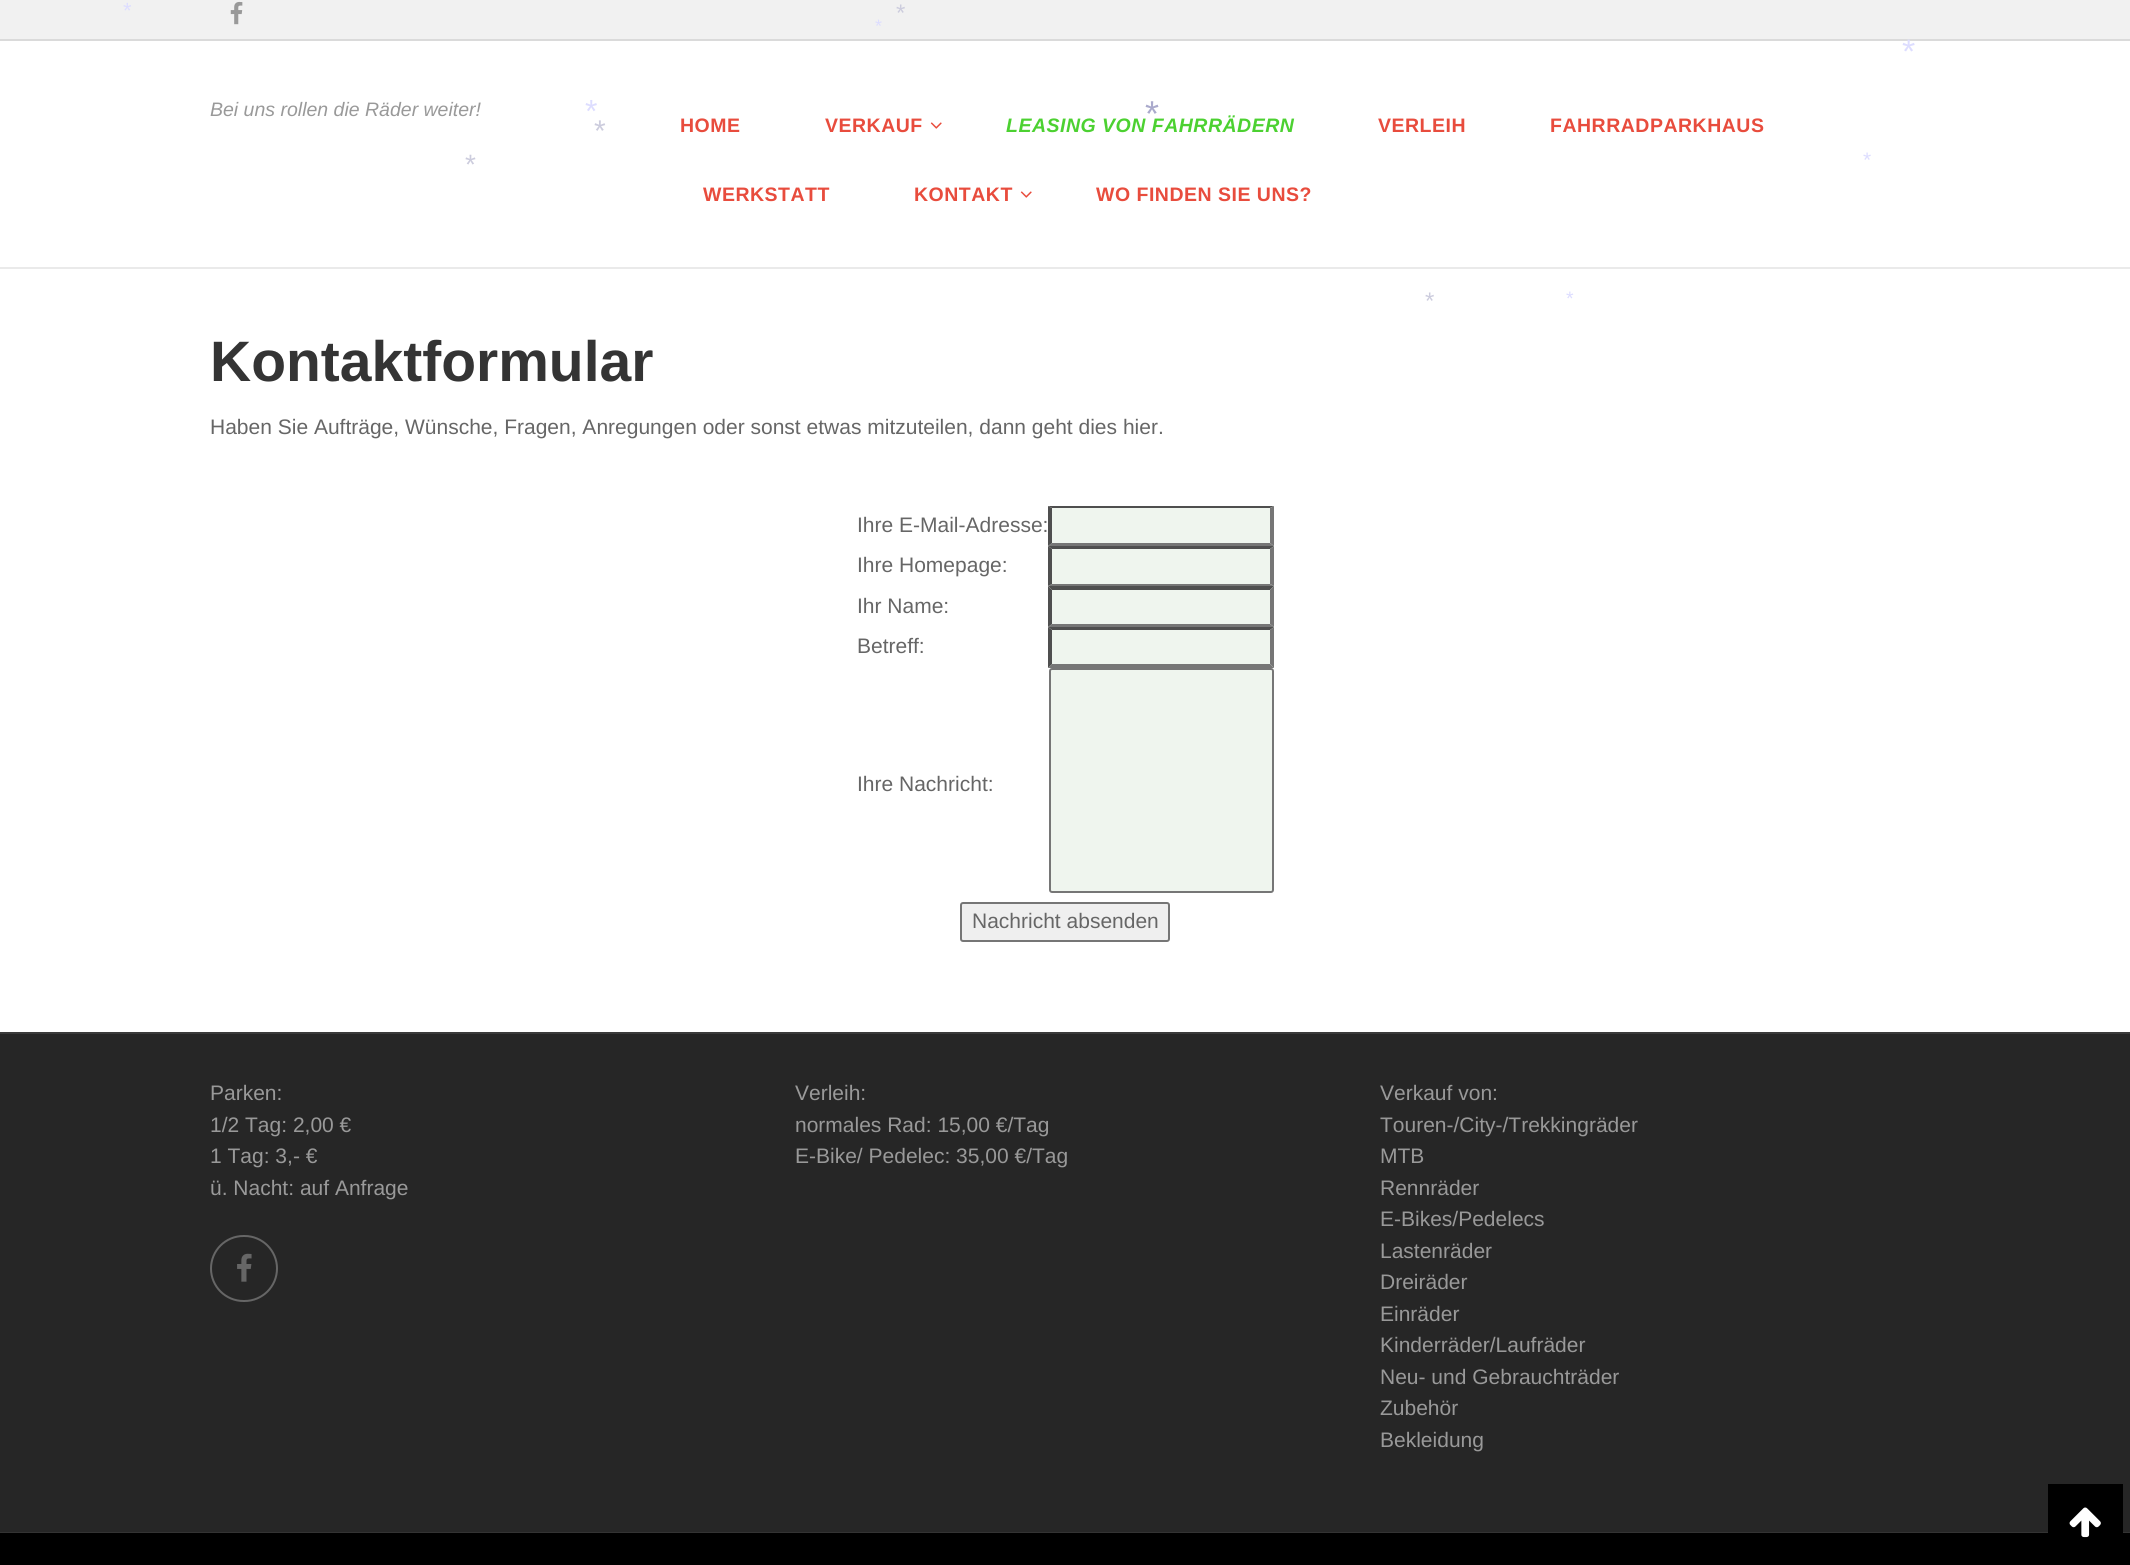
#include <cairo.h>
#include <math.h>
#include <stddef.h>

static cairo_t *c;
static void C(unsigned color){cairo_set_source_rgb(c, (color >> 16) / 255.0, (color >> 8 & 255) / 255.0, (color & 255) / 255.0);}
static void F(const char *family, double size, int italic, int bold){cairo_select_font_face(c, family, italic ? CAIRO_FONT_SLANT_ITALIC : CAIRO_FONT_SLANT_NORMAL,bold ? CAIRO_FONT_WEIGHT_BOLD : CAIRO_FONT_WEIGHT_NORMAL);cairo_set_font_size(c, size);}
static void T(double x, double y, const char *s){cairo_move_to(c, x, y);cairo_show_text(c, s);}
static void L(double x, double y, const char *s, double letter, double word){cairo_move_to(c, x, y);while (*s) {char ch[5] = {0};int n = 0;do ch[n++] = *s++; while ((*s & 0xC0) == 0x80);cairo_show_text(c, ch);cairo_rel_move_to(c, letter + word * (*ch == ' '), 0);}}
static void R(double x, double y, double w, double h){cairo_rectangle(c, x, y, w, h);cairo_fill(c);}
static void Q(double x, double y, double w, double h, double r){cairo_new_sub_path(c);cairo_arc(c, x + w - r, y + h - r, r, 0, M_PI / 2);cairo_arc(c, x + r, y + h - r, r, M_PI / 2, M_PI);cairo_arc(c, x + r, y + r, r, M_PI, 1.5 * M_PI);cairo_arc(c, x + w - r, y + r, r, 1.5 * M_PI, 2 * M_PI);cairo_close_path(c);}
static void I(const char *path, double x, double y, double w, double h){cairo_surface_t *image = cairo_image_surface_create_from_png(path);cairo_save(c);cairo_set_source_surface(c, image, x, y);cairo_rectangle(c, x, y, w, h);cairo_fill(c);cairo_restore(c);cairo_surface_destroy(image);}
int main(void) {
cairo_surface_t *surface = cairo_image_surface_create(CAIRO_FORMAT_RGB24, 2130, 1565);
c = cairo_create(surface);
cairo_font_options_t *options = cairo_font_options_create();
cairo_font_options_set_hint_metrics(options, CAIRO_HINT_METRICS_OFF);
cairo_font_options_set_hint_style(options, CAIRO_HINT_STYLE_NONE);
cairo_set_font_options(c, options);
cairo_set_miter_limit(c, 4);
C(0xffffff);
cairo_paint(c);
C(0xf1f1f1);
R(0,0,2130,39);
F("Liberation Sans",22,0,0);
C(0xddddff);
T(123,18,"*");
F("Liberation Sans",24,0,0);
C(0xccccdd);
T(896,21,"*");
F("Liberation Sans",18,0,0);
C(0xddddff);
T(875,32,"*");
C(0xdadada);
R(0,39,2130,2);
F("Liberation Sans",34,0,0);
C(0xddddff);
T(1902,63,"*");
F("Liberation Sans",32,0,0);
T(585,122,"*");
I("1.png",230,1,13,24);
C(0xeaeaea);
R(0,267,2130,2);
F("Liberation Sans",19.5,1,0);
C(0x999999);
T(210,116,"Bei uns rollen die Räder weiter!");
F("Liberation Sans",19.5,0,1);
C(0xe84c3d);
L(680,132,"HOME",.5,0);
L(825,132,"VERKAUF",.5,0);
I("2.png",930,122,12,7);
F("Liberation Sans",19.5,1,1);
C(0x4cd131);
L(1006,132,"LEASING VON FAHRRÄDERN",.5,0);
F("Liberation Sans",19.5,0,1);
C(0xe84c3d);
L(1378,132,"VERLEIH",.5,0);
L(1550,132,"FAHRRADPARKHAUS",.5,0);
L(703,201,"WERKSTATT",.5,0);
L(914,201,"KONTAKT",.5,0);
I("2.png",1020,191,12,7);
L(1096,201,"WO FINDEN SIE UNS?",.5,0);
F("Liberation Sans",57,0,1);
C(0x343434);
T(210,381,"Kontaktformular");
F("Liberation Sans",21,0,0);
C(0x666666);
T(210,434,"Haben Sie Aufträge, Wünsche, Fragen, Anregungen oder sonst etwas mitzuteilen, dann geht dies hier.");
T(857,532,"Ihre E-Mail-Adresse:");
C(0xeff5ee);
R(1049,506,225,162);
C(0x4f4f4f);
cairo_new_path(c);
cairo_move_to(c,1048,506);
cairo_line_to(c,1274,506);
cairo_line_to(c,1270,508);
cairo_line_to(c,1052,508);
cairo_close_path(c);
cairo_fill(c);
C(0x767676);
cairo_new_path(c);
cairo_move_to(c,1274,506);
cairo_line_to(c,1274,546);
cairo_line_to(c,1270,543);
cairo_line_to(c,1270,508);
cairo_close_path(c);
cairo_fill(c);
cairo_new_path(c);
cairo_move_to(c,1274,546);
cairo_line_to(c,1048,546);
cairo_line_to(c,1052,543);
cairo_line_to(c,1270,543);
cairo_close_path(c);
cairo_fill(c);
C(0x4f4f4f);
cairo_new_path(c);
cairo_move_to(c,1048,546);
cairo_line_to(c,1048,506);
cairo_line_to(c,1052,508);
cairo_line_to(c,1052,543);
cairo_close_path(c);
cairo_fill(c);
C(0x666666);
T(857,572,"Ihre Homepage:");
C(0x4f4f4f);
cairo_new_path(c);
cairo_move_to(c,1048,546);
cairo_line_to(c,1274,546);
cairo_line_to(c,1270,549);
cairo_line_to(c,1052,549);
cairo_close_path(c);
cairo_fill(c);
C(0x767676);
cairo_new_path(c);
cairo_move_to(c,1274,546);
cairo_line_to(c,1274,586);
cairo_line_to(c,1270,584);
cairo_line_to(c,1270,549);
cairo_close_path(c);
cairo_fill(c);
cairo_new_path(c);
cairo_move_to(c,1274,586);
cairo_line_to(c,1048,586);
cairo_line_to(c,1052,584);
cairo_line_to(c,1270,584);
cairo_close_path(c);
cairo_fill(c);
C(0x4f4f4f);
cairo_new_path(c);
cairo_move_to(c,1048,586);
cairo_line_to(c,1048,546);
cairo_line_to(c,1052,549);
cairo_line_to(c,1052,584);
cairo_close_path(c);
cairo_fill(c);
C(0x666666);
T(857,613,"Ihr Name:");
C(0x4f4f4f);
cairo_new_path(c);
cairo_move_to(c,1048,586);
cairo_line_to(c,1274,586);
cairo_line_to(c,1270,590);
cairo_line_to(c,1052,590);
cairo_close_path(c);
cairo_fill(c);
C(0x767676);
cairo_new_path(c);
cairo_move_to(c,1274,586);
cairo_line_to(c,1274,627);
cairo_line_to(c,1270,624);
cairo_line_to(c,1270,590);
cairo_close_path(c);
cairo_fill(c);
cairo_new_path(c);
cairo_move_to(c,1274,627);
cairo_line_to(c,1048,627);
cairo_line_to(c,1052,624);
cairo_line_to(c,1270,624);
cairo_close_path(c);
cairo_fill(c);
C(0x4f4f4f);
cairo_new_path(c);
cairo_move_to(c,1048,627);
cairo_line_to(c,1048,586);
cairo_line_to(c,1052,590);
cairo_line_to(c,1052,624);
cairo_close_path(c);
cairo_fill(c);
C(0x666666);
T(857,653,"Betreff:");
C(0x4f4f4f);
cairo_new_path(c);
cairo_move_to(c,1048,627);
cairo_line_to(c,1274,627);
cairo_line_to(c,1270,630);
cairo_line_to(c,1052,630);
cairo_close_path(c);
cairo_fill(c);
C(0x767676);
cairo_new_path(c);
cairo_move_to(c,1274,627);
cairo_line_to(c,1274,668);
cairo_line_to(c,1270,664);
cairo_line_to(c,1270,630);
cairo_close_path(c);
cairo_fill(c);
cairo_new_path(c);
cairo_move_to(c,1274,668);
cairo_line_to(c,1048,668);
cairo_line_to(c,1052,664);
cairo_line_to(c,1270,664);
cairo_close_path(c);
cairo_fill(c);
C(0x4f4f4f);
cairo_new_path(c);
cairo_move_to(c,1048,668);
cairo_line_to(c,1048,627);
cairo_line_to(c,1052,630);
cairo_line_to(c,1052,664);
cairo_close_path(c);
cairo_fill(c);
C(0x666666);
T(857,791,"Ihre Nachricht:");
C(0xeff5ee);
Q(1050,669,223,223,2);
cairo_fill_preserve(c);
C(0x767676);
cairo_stroke(c);
C(0xefefef);
Q(961,903,208,38,2);
cairo_fill_preserve(c);
C(0x767676);
cairo_stroke(c);
C(0x666666);
T(972,928,"Nachricht absenden");
C(0x262626);
R(0,1034,2130,498);
C(0x3a3a3a);
R(0,1032,2130,2);
C(0x333333);
R(0,1532,2130,1);
C(0x999999);
T(210,1100,"Parken:");
T(210,1132,"1/2 Tag: 2,00 €");
T(210,1163,"1 Tag: 3,- €");
T(210,1195,"ü. Nacht: auf Anfrage");
Q(211,1236,66,65,32.5);
C(0x666666);
cairo_stroke(c);
I("3.png",237,1253,15,29);
C(0x999999);
T(795,1100,"Verleih:");
T(795,1132,"normales Rad: 15,00 €/Tag");
T(795,1163,"E-Bike/ Pedelec: 35,00 €/Tag");
T(1380,1100,"Verkauf von:");
T(1380,1132,"Touren-/City-/Trekkingräder");
T(1380,1163,"MTB");
T(1380,1195,"Rennräder");
T(1380,1226,"E-Bikes/Pedelecs");
T(1380,1258,"Lastenräder");
T(1380,1289,"Dreiräder");
T(1380,1321,"Einräder");
T(1380,1352,"Kinderräder/Laufräder");
T(1380,1384,"Neu- und Gebrauchträder");
T(1380,1415,"Zubehör");
T(1380,1447,"Bekleidung");
C(0x000000);
R(0,1533,2130,32);
F("Liberation Sans",36,0,0);
C(0xaaaacc);
T(1145,126,"*");
F("Liberation Sans",30,0,0);
C(0xccccdd);
T(594,141,"*");
F("Liberation Sans",28,0,0);
T(465,174,"*");
F("Liberation Sans",21,0,0);
C(0xddddff);
T(1863,167,"*");
F("Liberation Sans",24,0,0);
C(0xccccdd);
T(1425,309,"*");
F("Liberation Sans",19.5,0,0);
C(0xddddff);
T(1566,305,"*");
C(0x000000);
R(2048,1484,75,49);
I("4.png",2069,1507,32,31);
cairo_surface_write_to_png(surface, "o.png");
cairo_font_options_destroy(options);
cairo_destroy(c);
cairo_surface_destroy(surface);
return 0;
}
